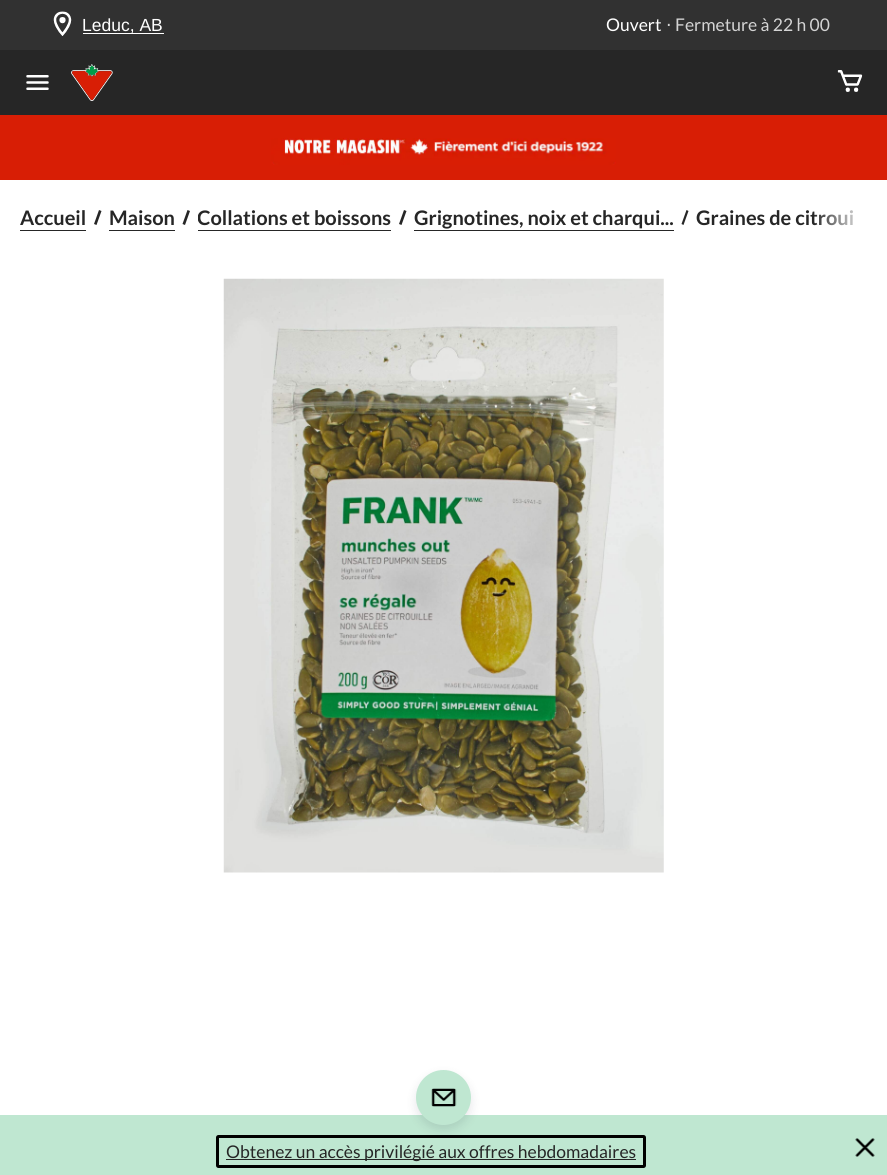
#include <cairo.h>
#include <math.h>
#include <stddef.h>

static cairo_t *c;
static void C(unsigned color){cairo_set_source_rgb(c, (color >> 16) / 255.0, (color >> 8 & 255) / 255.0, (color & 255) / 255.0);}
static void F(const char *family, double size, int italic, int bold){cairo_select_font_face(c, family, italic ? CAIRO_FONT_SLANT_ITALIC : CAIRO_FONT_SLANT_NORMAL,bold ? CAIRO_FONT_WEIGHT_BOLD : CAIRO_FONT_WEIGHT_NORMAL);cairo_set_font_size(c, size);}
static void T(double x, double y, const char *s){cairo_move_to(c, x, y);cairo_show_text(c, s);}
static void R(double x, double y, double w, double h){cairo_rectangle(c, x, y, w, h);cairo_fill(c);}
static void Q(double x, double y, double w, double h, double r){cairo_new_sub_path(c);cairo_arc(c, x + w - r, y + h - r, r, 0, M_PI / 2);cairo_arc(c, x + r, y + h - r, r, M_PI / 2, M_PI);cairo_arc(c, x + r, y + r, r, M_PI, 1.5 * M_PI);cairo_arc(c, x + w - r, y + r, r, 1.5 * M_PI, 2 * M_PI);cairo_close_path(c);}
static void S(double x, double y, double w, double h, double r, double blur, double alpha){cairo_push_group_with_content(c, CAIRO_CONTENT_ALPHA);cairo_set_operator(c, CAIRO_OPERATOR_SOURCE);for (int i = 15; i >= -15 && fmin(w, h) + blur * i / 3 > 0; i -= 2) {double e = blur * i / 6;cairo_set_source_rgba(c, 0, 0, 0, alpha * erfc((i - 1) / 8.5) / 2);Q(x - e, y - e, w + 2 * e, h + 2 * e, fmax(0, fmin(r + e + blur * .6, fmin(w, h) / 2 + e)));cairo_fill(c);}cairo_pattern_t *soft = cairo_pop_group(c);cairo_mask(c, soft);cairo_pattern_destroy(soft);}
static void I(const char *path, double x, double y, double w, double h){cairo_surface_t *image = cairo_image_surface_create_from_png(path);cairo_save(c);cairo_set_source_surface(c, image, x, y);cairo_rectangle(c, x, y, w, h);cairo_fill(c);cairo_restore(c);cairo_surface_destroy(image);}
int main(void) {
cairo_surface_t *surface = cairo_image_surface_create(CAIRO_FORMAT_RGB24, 887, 1175);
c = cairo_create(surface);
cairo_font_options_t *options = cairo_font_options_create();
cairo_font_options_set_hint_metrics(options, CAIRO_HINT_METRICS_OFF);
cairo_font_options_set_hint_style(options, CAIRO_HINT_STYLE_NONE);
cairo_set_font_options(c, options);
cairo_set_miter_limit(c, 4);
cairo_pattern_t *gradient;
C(0xffffff);
cairo_paint(c);
C(0x313131);
R(0,0,887,50);
I("1.png",53,11,19,25);
C(0xffffff);
R(83,33,81,1);
F("Liberation Sans",17.5,0,0);
T(82,31,"Leduc, AB");
F("Lato",17.5,0,0);
T(606,31,"Ouvert");
F("DejaVu Sans",17.5,0,0);
C(0xd4d4d4);
T(666,31,"⋅");
F("Lato",17.5,0,0);
T(675,31,"Fermeture à 22 h 00");
C(0x262626);
R(0,50,887,65);
I("2.png",26,75,23,15);
I("3.png",71,64,42,37);
I("4.png",837,70,26,22);
C(0xd81e05);
R(0,115,887,65);
I("5.png",271,138,345,27);
F("Lato",20,0,1);
C(0x262626);
T(20,225,"Accueil");
R(20,230,66,1);
cairo_new_path(c);
cairo_move_to(c,99,210);
cairo_line_to(c,101.5,211);
cairo_line_to(c,96.5,225);
cairo_line_to(c,94,224);
cairo_close_path(c);
cairo_fill(c);
T(109,225,"Maison");
R(109,230,66,1);
cairo_new_path(c);
cairo_move_to(c,187.5,210);
cairo_line_to(c,190,211);
cairo_line_to(c,185,225);
cairo_line_to(c,182.5,224);
cairo_close_path(c);
cairo_fill(c);
cairo_save(c);
cairo_rectangle(c,198,205,193,29);
cairo_clip(c);
T(197,225,"Collations et boissons");
cairo_restore(c);
R(198,230,193,1);
cairo_new_path(c);
cairo_move_to(c,404,210);
cairo_line_to(c,406.5,211);
cairo_line_to(c,401.5,225);
cairo_line_to(c,399,224);
cairo_close_path(c);
cairo_fill(c);
T(414,225,"Grignotines, noix et charqui...");
R(414,230,260,1);
cairo_new_path(c);
cairo_move_to(c,686.5,210);
cairo_line_to(c,688.5,211);
cairo_line_to(c,683.5,225);
cairo_line_to(c,681.5,224);
cairo_close_path(c);
cairo_fill(c);
T(696,225,"Graines de citroui");
gradient = cairo_pattern_create_linear(868,209,813,209);
cairo_pattern_add_color_stop_rgba(gradient,0,1,1,1,1);
cairo_pattern_add_color_stop_rgba(gradient,1,1,1,1,0);
cairo_set_source(c,gradient);
cairo_pattern_destroy(gradient);
R(814,210,40,16);
I("6.png",223,278,441,595);
C(0xbfe7d1);
R(0,1115,887,60);
Q(217.5,1136.5,427,30,1);
C(0x000000);
cairo_set_line_width(c,3);
cairo_stroke(c);
C(0x00001a);
S(416,1075,55,55,27.5,5,.1);
C(0xbfe7d1);
cairo_arc(c,443.5,1097.5,27.5,0,2 * M_PI);
cairo_fill(c);
I("7.png",431,1088,26,19);
C(0x262626);
R(226,1159,410,1);
F("Lato",17.5,0,0);
T(226,1158,"Obtenez un accès privilégié aux offres hebdomadaires");
I("8.png",855,1138,20,19);
cairo_surface_write_to_png(surface, "o.png");
cairo_font_options_destroy(options);
cairo_destroy(c);
cairo_surface_destroy(surface);
return 0;
}
